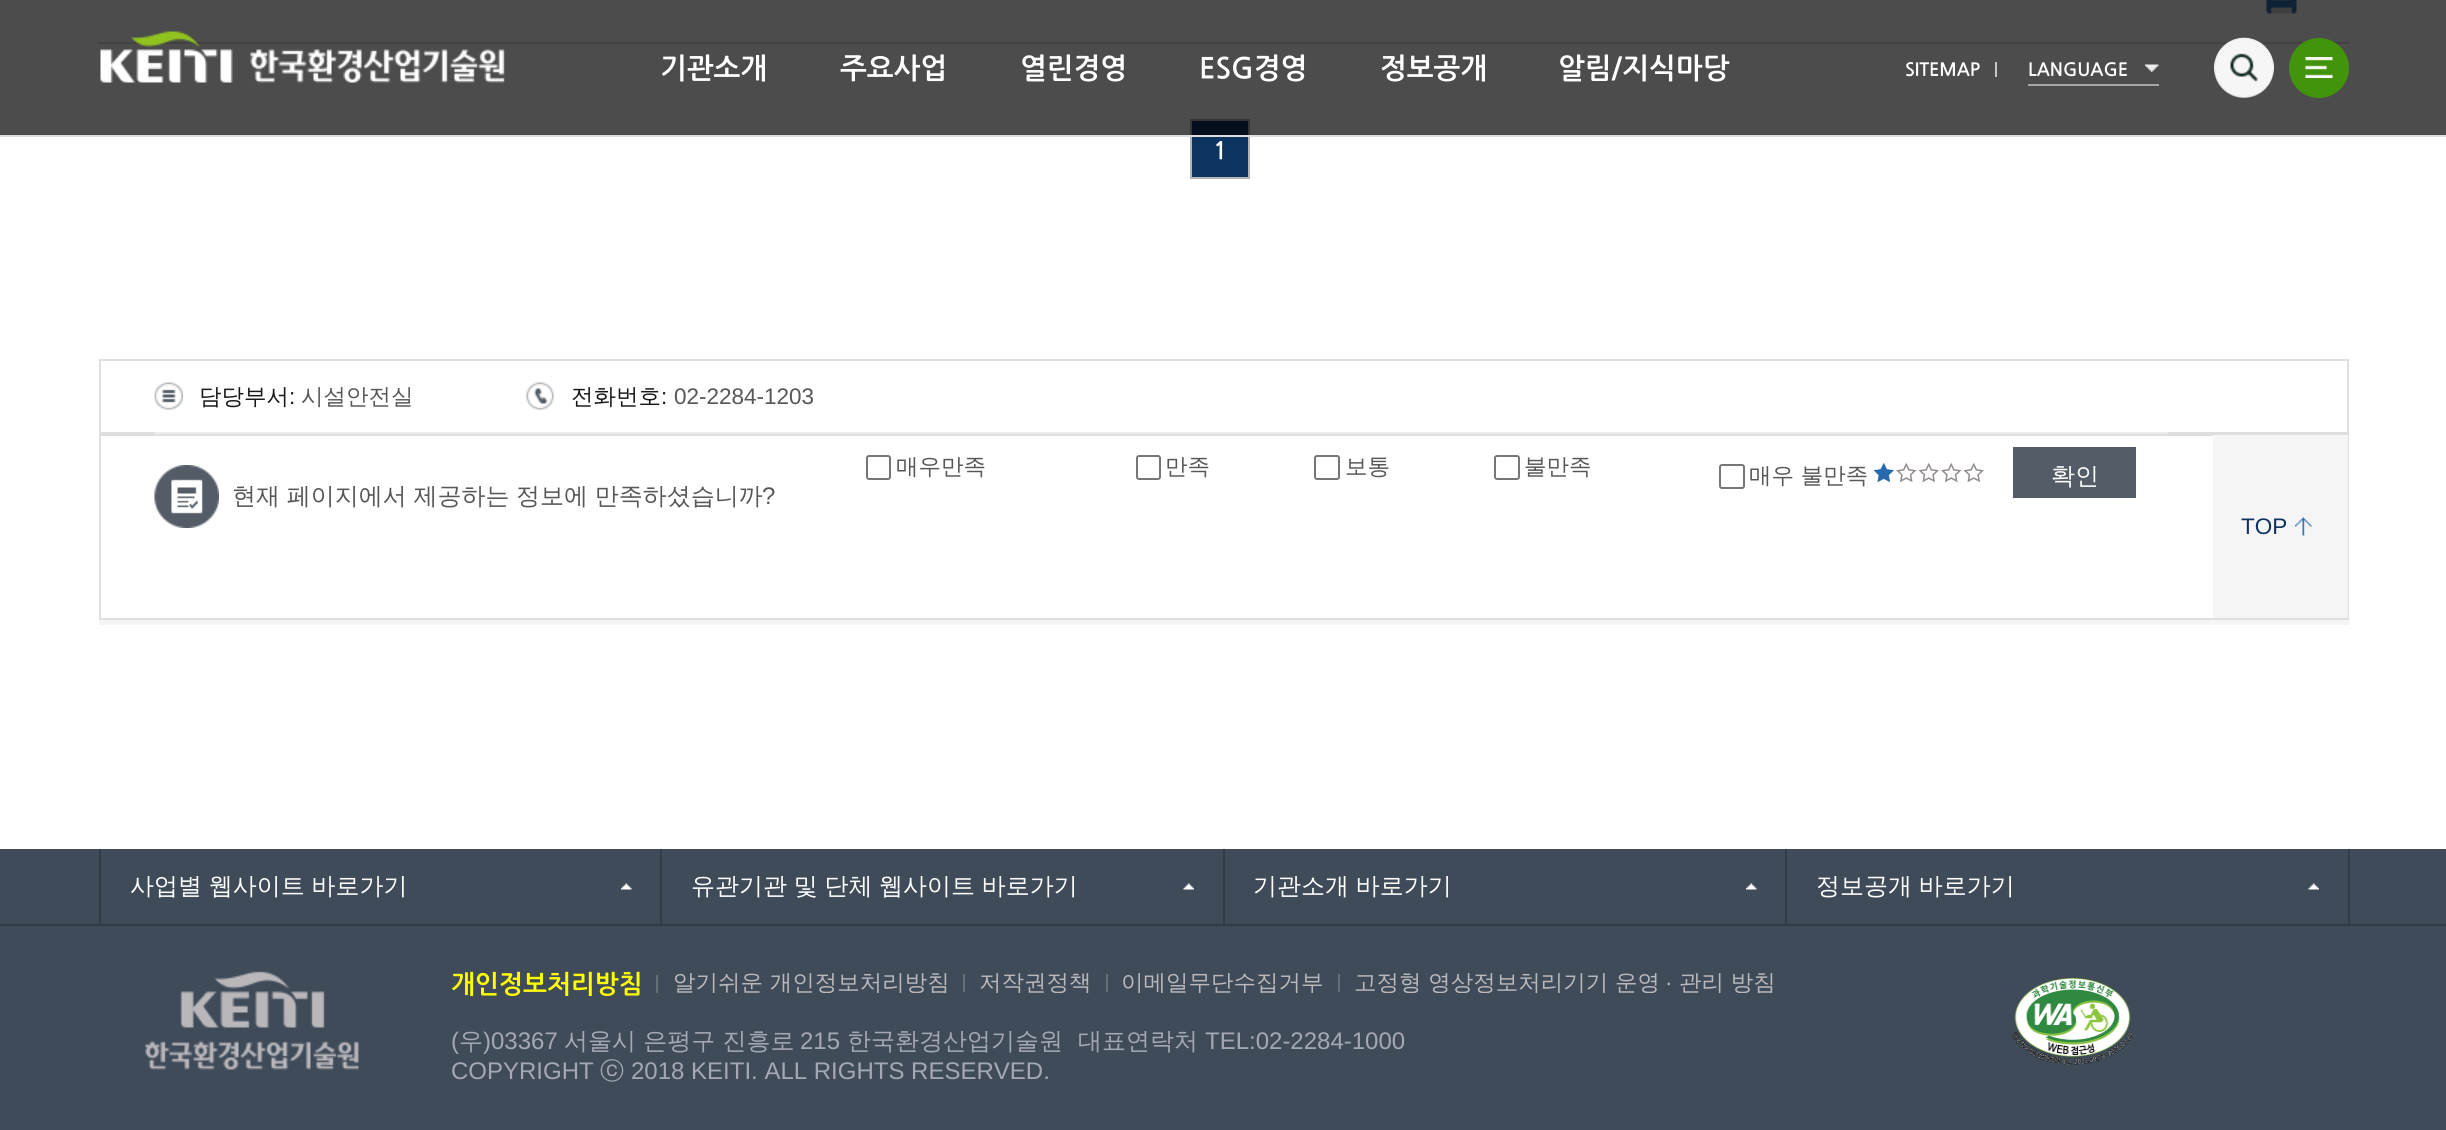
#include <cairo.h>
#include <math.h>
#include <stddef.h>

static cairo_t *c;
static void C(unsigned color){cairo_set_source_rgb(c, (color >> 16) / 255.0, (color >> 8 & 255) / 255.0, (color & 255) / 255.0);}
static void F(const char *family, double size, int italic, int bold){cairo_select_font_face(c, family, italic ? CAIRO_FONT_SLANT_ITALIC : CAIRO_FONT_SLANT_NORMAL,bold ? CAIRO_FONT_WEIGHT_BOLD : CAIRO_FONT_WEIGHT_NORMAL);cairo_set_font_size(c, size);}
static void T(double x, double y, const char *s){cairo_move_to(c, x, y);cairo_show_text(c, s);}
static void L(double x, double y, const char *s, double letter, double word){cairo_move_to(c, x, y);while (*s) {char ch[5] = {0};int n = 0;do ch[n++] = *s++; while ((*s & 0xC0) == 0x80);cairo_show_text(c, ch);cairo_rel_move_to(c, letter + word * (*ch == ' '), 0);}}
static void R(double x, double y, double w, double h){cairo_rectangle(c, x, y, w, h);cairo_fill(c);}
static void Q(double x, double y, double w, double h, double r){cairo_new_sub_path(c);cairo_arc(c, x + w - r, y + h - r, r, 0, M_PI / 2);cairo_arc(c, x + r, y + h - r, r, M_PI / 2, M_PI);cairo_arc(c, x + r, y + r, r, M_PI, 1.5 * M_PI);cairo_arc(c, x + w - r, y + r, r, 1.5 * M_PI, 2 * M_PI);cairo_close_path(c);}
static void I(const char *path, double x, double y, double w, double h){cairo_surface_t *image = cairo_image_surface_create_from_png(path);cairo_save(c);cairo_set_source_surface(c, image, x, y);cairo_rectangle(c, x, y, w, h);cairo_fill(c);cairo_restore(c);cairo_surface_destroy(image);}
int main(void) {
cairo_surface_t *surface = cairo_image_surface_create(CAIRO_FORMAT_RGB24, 2446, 1130);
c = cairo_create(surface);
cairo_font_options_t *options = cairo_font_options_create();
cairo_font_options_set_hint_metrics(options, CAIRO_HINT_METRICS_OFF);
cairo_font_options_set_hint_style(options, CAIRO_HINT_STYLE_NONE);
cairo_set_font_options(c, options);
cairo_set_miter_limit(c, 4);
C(0xffffff);
cairo_paint(c);
C(0xdfdfdf);
R(98,42,2251,2);
I("5.png",2266,0,31,14);
C(0x0d3360);
cairo_rectangle(c,1191,120,58,58);
cairo_fill_preserve(c);
C(0xb4b4b4);
cairo_stroke(c);
cairo_set_source_rgba(c,0,0,0,0.7);
R(0,0,2446,135);
C(0xdddddd);
R(0,135,2446,2);
I("1.png",100,31,405,52);
F("NanumGothic",28.5,0,1);
C(0xffffff);
T(660,77,"기관소개");
T(840,77,"주요사업");
T(1020,77,"열린경영");
T(1199,77,"ESG경영");
T(1380,77,"정보공개");
T(1558,77,"알림/지식마당");
F("NanumGothic",18,0,1);
T(1905,75,"SITEMAP");
C(0xc7c7c7);
R(1995,62,2,15);
I("2.png",2145,64,14,8);
C(0xa6a6a6);
R(2028,84,131,2);
C(0xffffff);
T(2028,75,"LANGUAGE");
C(0xb0b0b0);
cairo_new_path(c);
cairo_arc(c,2244,68,30,0,2 * M_PI);
cairo_fill(c);
I("3.png",2213,37,62,61);
C(0x42940c);
cairo_arc(c,2319,68,30,0,2 * M_PI);
cairo_fill(c);
I("4.png",2305,57,28,21);
F("NanumGothic",24,0,1);
C(0xffffff);
T(1213,158,"1");
C(0xf5f5f5);
R(99,620,2250,5);
cairo_rectangle(c,100,360,2248,73);
C(0xdfdfdf);
cairo_stroke(c);
C(0xececec);
R(155,432,2013,2);
I("6.png",154,382,29,28);
F("WenQuanYi Zen Hei Medium",22.5,0,0);
C(0x181818);
T(199,404,"담당부서");
F("Liberation Sans",22.5,0,0);
T(289,404,":");
F("WenQuanYi Zen Hei Medium",22.5,0,0);
C(0x575757);
T(301,404,"시설안전실");
I("7.png",526,382,28,28);
C(0x181818);
T(571,404,"전화번호");
F("Liberation Sans",22.5,0,0);
T(661,404,":");
C(0x575757);
T(674,404,"02-2284-1203");
cairo_rectangle(c,100,435,2248,184);
C(0xdfdfdf);
cairo_stroke(c);
Q(867,456,23,23,2);
C(0x767676);
cairo_stroke(c);
F("WenQuanYi Zen Hei Medium",22.5,0,0);
C(0x575757);
T(896,474,"매우만족");
Q(1137,456,23,23,2);
C(0x767676);
cairo_stroke(c);
C(0x575757);
T(1165,474,"만족");
Q(1315,456,24,23,2);
C(0x767676);
cairo_stroke(c);
C(0x575757);
T(1345,474,"보통");
Q(1495,456,24,23,2);
C(0x767676);
cairo_stroke(c);
C(0x575757);
T(1524,474,"불만족");
Q(1720,465,24,23,2);
C(0x767676);
cairo_stroke(c);
C(0x575757);
T(1749,483,"매우 불만족");
I("8.png",1874,462,110,21);
C(0x545d67);
R(2013,447,123,51);
F("WenQuanYi Zen Hei Medium",24,0,0);
C(0xffffff);
T(2051,484,"확인");
I("9.png",154,465,65,63);
C(0x575757);
L(232,504,"현재 페이지에서 제공하는 정보에 만족하셨습니까",0,-.5);
F("Liberation Sans",24,0,0);
T(762,504,"?");
C(0xf5f5f5);
R(2213,435,135,183);
I("10.png",2295,517,17,19);
F("Liberation Sans",22.5,0,0);
C(0x0d3361);
T(2241,534,"TOP");
C(0x3f4b59);
R(0,849,2446,281);
C(0x323c47);
R(0,924,2446,2);
R(660,849,2,75);
R(99,849,2,75);
I("11.png",621,883,11,7);
F("WenQuanYi Zen Hei Medium",24,0,0);
C(0xffffff);
L(130,894,"사업별 웹사이트 바로가기",0,-.5);
C(0x323c47);
R(1223,849,2,75);
I("12.png",1183,883,11,7);
C(0xffffff);
L(691,894,"유관기관 및 단체 웹사이트 바로가기",0,-.5);
C(0x323c47);
R(1785,849,2,75);
I("11.png",1746,883,11,7);
C(0xffffff);
L(1253,894,"기관소개 바로가기",0,-.5);
C(0x323c47);
R(2348,849,2,75);
I("13.png",2308,883,11,7);
C(0xffffff);
L(1816,894,"정보공개 바로가기",0,-.5);
I("14.png",145,971,214,99);
F("NanumGothic",25.5,0,1);
C(0xffff00);
T(451,992,"개인정보처리방침");
C(0x676f79);
R(656,975,2,18);
cairo_save(c);
cairo_rectangle(c,672,971,308,22);
cairo_clip(c);
F("WenQuanYi Zen Hei Medium",22.5,0,0);
C(0xb9b8bb);
T(673,990,"알기쉬운 개인정보처리방침");
cairo_restore(c);
R(963,974,2,18);
cairo_save(c);
cairo_rectangle(c,980,971,142,22);
cairo_clip(c);
F("WenQuanYi Zen Hei Medium",22.5,0,0);
C(0xb9b8bb);
T(979,990,"저작권정책");
cairo_restore(c);
R(1106,974,2,18);
cairo_save(c);
cairo_rectangle(c,1122,971,233,22);
cairo_clip(c);
F("WenQuanYi Zen Hei Medium",22.5,0,0);
C(0xb9b8bb);
T(1121,990,"이메일무단수집거부");
cairo_restore(c);
R(1338,974,2,18);
cairo_save(c);
cairo_rectangle(c,1355,971,450,22);
cairo_clip(c);
F("WenQuanYi Zen Hei Medium",22.5,0,0);
C(0xb9b8bb);
T(1354,990,"고정형 영상정보처리기기 운영");
cairo_restore(c);
F("Liberation Sans",22.5,0,0);
C(0xb9b8bb);
T(1665,990,"·");
cairo_save(c);
cairo_rectangle(c,1355,971,450,22);
cairo_clip(c);
F("WenQuanYi Zen Hei Medium",22.5,0,0);
T(1679,990,"관리 방침");
cairo_restore(c);
I("15.png",2011,978,122,87);
F("Liberation Sans",24,0,0);
C(0xa4a8b4);
T(451,1049,"(");
F("WenQuanYi Zen Hei Medium",24,0,0);
T(459,1049,"우");
F("Liberation Sans",24,0,0);
T(483,1049,")03367");
F("WenQuanYi Zen Hei Medium",24,0,0);
T(564,1049,"서울시 은평구 진흥로");
F("Liberation Sans",24,0,0);
T(800,1049,"215");
F("WenQuanYi Zen Hei Medium",24,0,0);
T(847,1049,"한국환경산업기술원");
T(1078,1049,"대표연락처");
F("Liberation Sans",24,0,0);
T(1205,1049,"TEL:02-2284-1000");
T(451,1079,"COPYRIGHT");
F("WenQuanYi Zen Hei Medium",24,0,0);
T(600,1079,"ⓒ");
F("Liberation Sans",24,0,0);
T(631,1079,"2018 KEITI. ALL RIGHTS RESERVED.");
cairo_surface_write_to_png(surface, "o.png");
cairo_font_options_destroy(options);
cairo_destroy(c);
cairo_surface_destroy(surface);
return 0;
}
